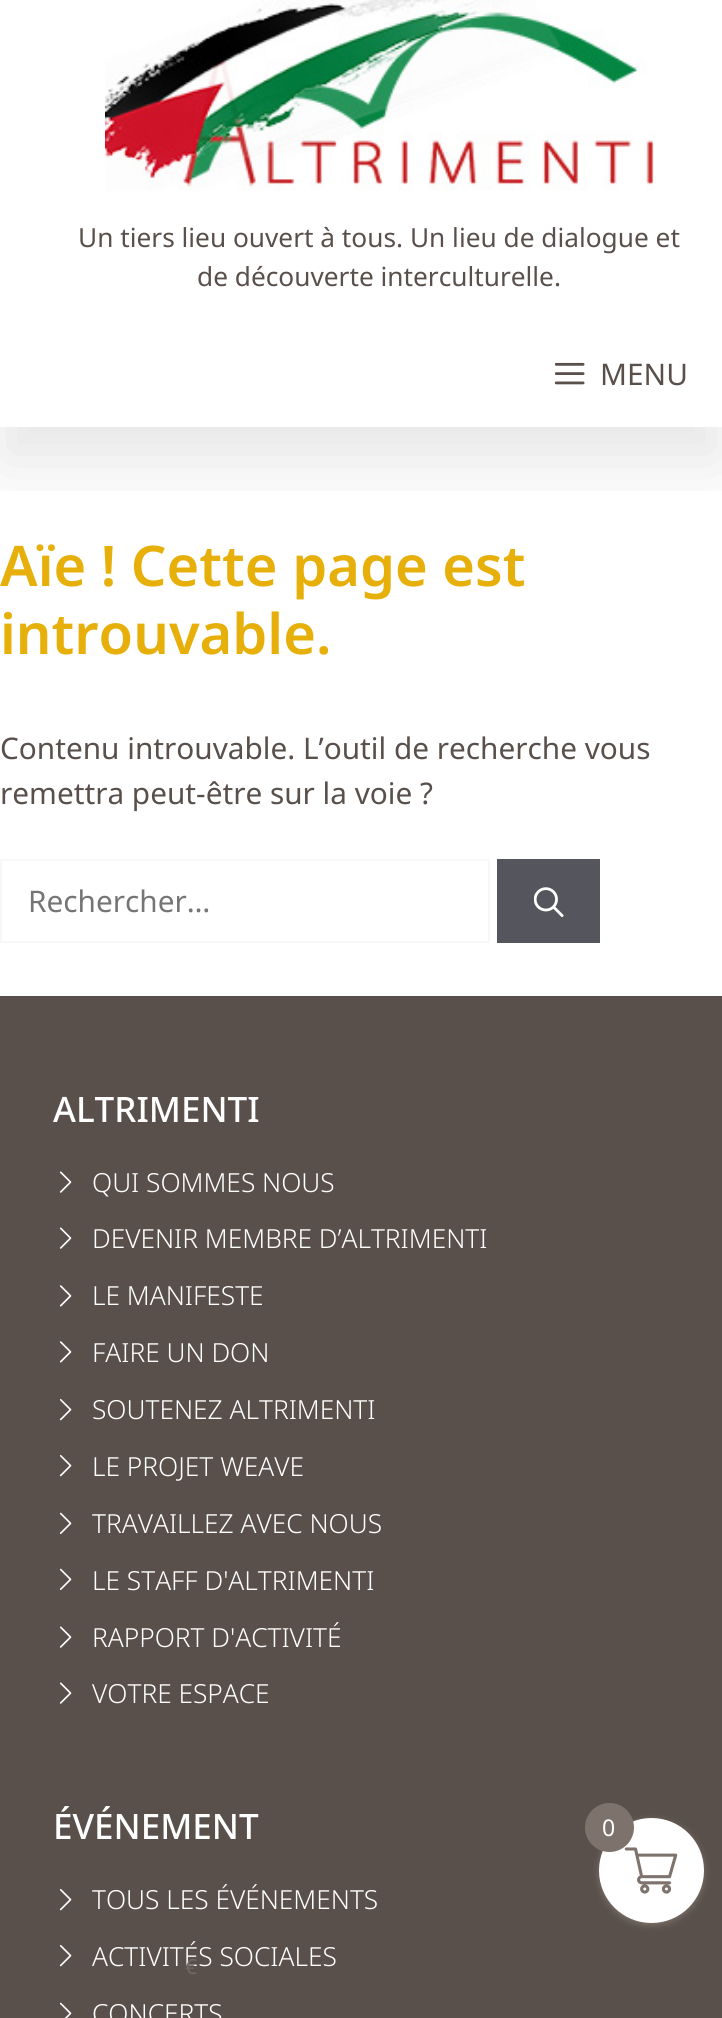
#include <cairo.h>
#include <math.h>
#include <stddef.h>

static cairo_t *c;
static void C(unsigned color){cairo_set_source_rgb(c, (color >> 16) / 255.0, (color >> 8 & 255) / 255.0, (color & 255) / 255.0);}
static void F(const char *family, double size, int italic, int bold){cairo_select_font_face(c, family, italic ? CAIRO_FONT_SLANT_ITALIC : CAIRO_FONT_SLANT_NORMAL,bold ? CAIRO_FONT_WEIGHT_BOLD : CAIRO_FONT_WEIGHT_NORMAL);cairo_set_font_size(c, size);}
static void T(double x, double y, const char *s){cairo_move_to(c, x, y);cairo_show_text(c, s);}
static void R(double x, double y, double w, double h){cairo_rectangle(c, x, y, w, h);cairo_fill(c);}
static void Q(double x, double y, double w, double h, double r){cairo_new_sub_path(c);cairo_arc(c, x + w - r, y + h - r, r, 0, M_PI / 2);cairo_arc(c, x + r, y + h - r, r, M_PI / 2, M_PI);cairo_arc(c, x + r, y + r, r, M_PI, 1.5 * M_PI);cairo_arc(c, x + w - r, y + r, r, 1.5 * M_PI, 2 * M_PI);cairo_close_path(c);}
static void S(double x, double y, double w, double h, double r, double blur, double alpha){cairo_push_group_with_content(c, CAIRO_CONTENT_ALPHA);cairo_set_operator(c, CAIRO_OPERATOR_SOURCE);for (int i = 15; i >= -15 && fmin(w, h) + blur * i / 3 > 0; i -= 2) {double e = blur * i / 6;cairo_set_source_rgba(c, 0, 0, 0, alpha * erfc((i - 1) / 8.5) / 2);Q(x - e, y - e, w + 2 * e, h + 2 * e, fmax(0, fmin(r + e + blur * .6, fmin(w, h) / 2 + e)));cairo_fill(c);}cairo_pattern_t *soft = cairo_pop_group(c);cairo_mask(c, soft);cairo_pattern_destroy(soft);}
static void I(const char *path, double x, double y, double w, double h){cairo_surface_t *image = cairo_image_surface_create_from_png(path);cairo_save(c);cairo_set_source_surface(c, image, x, y);cairo_rectangle(c, x, y, w, h);cairo_fill(c);cairo_restore(c);cairo_surface_destroy(image);}
int main(void) {
cairo_surface_t *surface = cairo_image_surface_create(CAIRO_FORMAT_RGB24, 722, 2018);
c = cairo_create(surface);
cairo_font_options_t *options = cairo_font_options_create();
cairo_font_options_set_hint_metrics(options, CAIRO_HINT_METRICS_OFF);
cairo_font_options_set_hint_style(options, CAIRO_HINT_STYLE_NONE);
cairo_set_font_options(c, options);
cairo_set_miter_limit(c, 4);
C(0xffffff);
cairo_paint(c);
cairo_save(c);
cairo_rectangle(c,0,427,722,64);
cairo_clip(c);
C(0x000000);
S(0,35,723,427,0,35,.1);
cairo_restore(c);
I("1.png",105,0,550,191);
F("Noto Sans",26.25,0,0);
C(0x59504b);
T(78,247,"Un tiers lieu ouvert à tous. Un lieu de dialogue et");
T(197,286,"de découverte interculturelle.");
I("2.png",555,362,30,23);
F("Noto Sans",29.75,0,0);
T(600,385,"MENU");
F("Noto Sans SemiBold",56,0,0);
C(0xe7af0a);
T(0,586,"Aïe ! Cette page est");
T(0,654,"introuvable.");
F("Noto Sans",29.75,0,0);
C(0x59504b);
T(0,759,"Contenu introuvable. L’outil de recherche vous");
T(0,804,"remettra peut-être sur la voie ?");
cairo_rectangle(c,1,860,488,82);
C(0xf7f7f7);
cairo_stroke(c);
C(0x757575);
T(28,912,"Rechercher…");
C(0x55555e);
R(497,859,103,84);
I("3.png",534,887,30,30);
C(0x59504b);
R(0,996,722,1022);
F("Noto Sans Medium",35,0,0);
C(0xffffff);
T(53,1122,"ALTRIMENTI");
I("4.png",59,1171,13,22);
F("Noto Sans Light",26.25,0,0);
T(92,1192,"QUI SOMMES NOUS");
I("4.png",59,1227,13,22);
T(92,1248,"DEVENIR MEMBRE D’ALTRIMENTI");
I("5.png",59,1285,13,22);
T(92,1305,"LE MANIFESTE");
I("5.png",59,1341,13,22);
T(92,1362,"FAIRE UN DON");
I("6.png",59,1399,13,22);
T(92,1419,"SOUTENEZ ALTRIMENTI");
I("6.png",59,1455,13,22);
T(92,1476,"LE PROJET WEAVE");
I("7.png",59,1512,13,22);
T(92,1533,"TRAVAILLEZ AVEC NOUS");
I("7.png",59,1568,13,22);
T(92,1590,"LE STAFF D'ALTRIMENTI");
I("4.png",59,1626,13,22);
T(92,1647,"RAPPORT D'ACTIVITÉ");
I("4.png",59,1682,13,22);
T(92,1703,"VOTRE ESPACE");
F("Noto Sans Medium",35,0,0);
T(53,1839,"ÉVÉNEMENT");
I("6.png",59,1889,13,22);
F("Noto Sans Light",26.25,0,0);
T(92,1909,"TOUS LES ÉVÉNEMENTS");
I("6.png",59,1945,13,22);
T(92,1966,"ACTIVITÉS SOCIALES");
I("8.png",59,2002,13,16);
T(92,2023,"CONCERTS");
C(0x7e736c);
S(599,1820,105,105,52.5,3.5,1);
C(0xffffff);
cairo_arc(c,651.5,1870.5,52.5,0,2 * M_PI);
cairo_fill(c);
I("9.png",624,1847,54,47);
C(0x7e736c);
cairo_arc(c,609.5,1827.5,24.5,0,2 * M_PI);
cairo_fill(c);
F("Noto Sans",23,0,0);
C(0xffffff);
T(602,1836,"0");
F("Noto Sans",21,0,0);
C(0x706863);
T(185,1974,"€");
cairo_surface_write_to_png(surface, "o.png");
cairo_font_options_destroy(options);
cairo_destroy(c);
cairo_surface_destroy(surface);
return 0;
}
